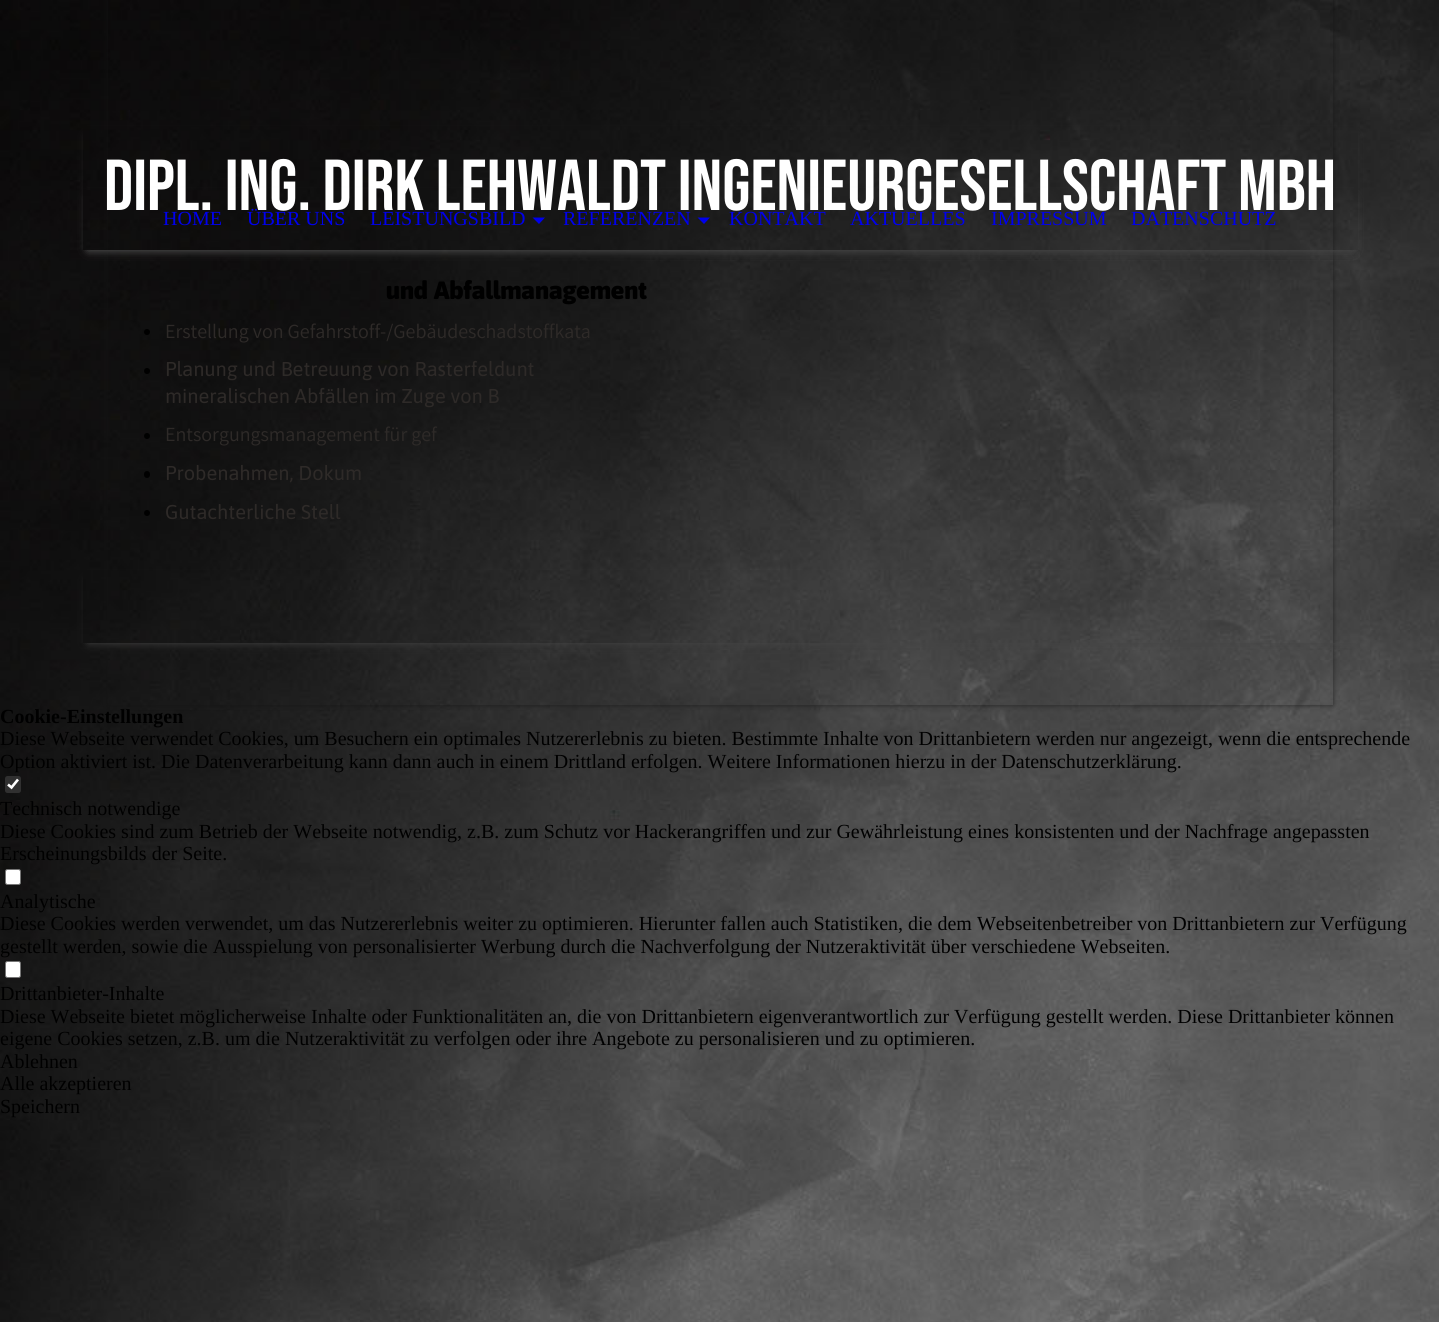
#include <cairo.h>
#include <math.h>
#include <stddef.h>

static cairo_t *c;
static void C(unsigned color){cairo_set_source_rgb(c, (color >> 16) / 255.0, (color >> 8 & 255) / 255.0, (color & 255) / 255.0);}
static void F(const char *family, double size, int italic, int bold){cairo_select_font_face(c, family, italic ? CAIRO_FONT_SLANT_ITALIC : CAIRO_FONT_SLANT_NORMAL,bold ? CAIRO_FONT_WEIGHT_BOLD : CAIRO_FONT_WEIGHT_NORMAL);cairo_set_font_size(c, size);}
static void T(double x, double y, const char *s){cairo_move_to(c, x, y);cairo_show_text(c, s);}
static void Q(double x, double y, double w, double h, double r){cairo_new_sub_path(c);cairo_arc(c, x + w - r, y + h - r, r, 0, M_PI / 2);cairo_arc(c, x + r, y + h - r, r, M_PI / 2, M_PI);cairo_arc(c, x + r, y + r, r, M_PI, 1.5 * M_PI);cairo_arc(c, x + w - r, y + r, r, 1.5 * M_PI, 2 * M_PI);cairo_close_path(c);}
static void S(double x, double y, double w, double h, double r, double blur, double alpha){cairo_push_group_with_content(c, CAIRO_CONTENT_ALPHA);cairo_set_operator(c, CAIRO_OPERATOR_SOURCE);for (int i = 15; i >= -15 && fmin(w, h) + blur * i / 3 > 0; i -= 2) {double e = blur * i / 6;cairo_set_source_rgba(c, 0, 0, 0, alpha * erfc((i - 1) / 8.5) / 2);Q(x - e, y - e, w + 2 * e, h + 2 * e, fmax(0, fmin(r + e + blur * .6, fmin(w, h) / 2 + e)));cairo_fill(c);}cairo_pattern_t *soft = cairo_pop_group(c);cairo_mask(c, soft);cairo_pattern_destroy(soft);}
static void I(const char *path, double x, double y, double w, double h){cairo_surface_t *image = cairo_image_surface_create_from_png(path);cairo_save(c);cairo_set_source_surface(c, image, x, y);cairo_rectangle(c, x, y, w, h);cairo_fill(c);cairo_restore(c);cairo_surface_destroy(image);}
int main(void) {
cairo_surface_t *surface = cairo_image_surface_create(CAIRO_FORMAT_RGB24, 1439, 1322);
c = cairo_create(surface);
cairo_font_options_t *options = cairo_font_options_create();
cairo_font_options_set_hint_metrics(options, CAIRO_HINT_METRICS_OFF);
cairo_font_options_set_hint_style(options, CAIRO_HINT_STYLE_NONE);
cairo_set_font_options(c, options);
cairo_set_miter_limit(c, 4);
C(0xffffff);
cairo_paint(c);
I("1.png",0,0,1439,1322);
cairo_save(c);
cairo_set_fill_rule(c,CAIRO_FILL_RULE_EVEN_ODD);
cairo_new_path(c);
cairo_move_to(c,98,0);
cairo_line_to(c,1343,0);
cairo_line_to(c,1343,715);
cairo_line_to(c,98,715);
cairo_close_path(c);
cairo_move_to(c,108,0);
cairo_line_to(c,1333,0);
cairo_line_to(c,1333,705);
cairo_line_to(c,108,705);
cairo_close_path(c);
cairo_clip(c);
C(0x141414);
S(108,0,1225,705,0,3,.7);
cairo_restore(c);
cairo_save(c);
cairo_set_fill_rule(c,CAIRO_FILL_RULE_EVEN_ODD);
cairo_new_path(c);
cairo_move_to(c,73,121);
cairo_line_to(c,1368,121);
cairo_line_to(c,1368,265);
cairo_line_to(c,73,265);
cairo_close_path(c);
cairo_move_to(c,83,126);
cairo_line_to(c,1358,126);
cairo_line_to(c,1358,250);
cairo_line_to(c,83,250);
cairo_close_path(c);
cairo_clip(c);
C(0x444444);
S(88,136,1265,114,0,4.5,1);
cairo_restore(c);
F("Bebas Neue",72,0,0);
C(0xffffff);
T(104,210,"Dipl. Ing. Dirk Lehwaldt Ingenieurgesellschaft mbH");
cairo_save(c);
cairo_set_fill_rule(c,CAIRO_FILL_RULE_EVEN_ODD);
cairo_new_path(c);
cairo_move_to(c,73,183);
cairo_line_to(c,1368,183);
cairo_line_to(c,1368,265);
cairo_line_to(c,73,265);
cairo_close_path(c);
cairo_move_to(c,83,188);
cairo_line_to(c,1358,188);
cairo_line_to(c,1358,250);
cairo_line_to(c,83,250);
cairo_close_path(c);
cairo_clip(c);
C(0x444444);
S(88,198,1265,52,0,4.5,1);
cairo_restore(c);
F("Liberation Serif",20,0,0);
C(0x0000ee);
T(163,225,"HOME");
T(247,225,"ÜBER UNS");
T(370,225,"LEISTUNGSBILD");
cairo_new_path(c);
cairo_move_to(c,532.5,217.5);
cairo_line_to(c,545,217.5);
cairo_line_to(c,539,224);
cairo_close_path(c);
cairo_fill(c);
T(563,225,"REFERENZEN");
cairo_new_path(c);
cairo_move_to(c,697.5,217.5);
cairo_line_to(c,710,217.5);
cairo_line_to(c,704,224);
cairo_close_path(c);
cairo_fill(c);
T(729,225,"KONTAKT");
T(850,225,"AKTUELLES");
T(991,225,"IMPRESSUM");
T(1131,225,"DATENSCHUTZ");
F("Asap Black",25,0,0);
C(0x000000);
T(386,299,"und Abfallmanagement");
cairo_new_path(c);
cairo_arc(c,147,332,3,0,2 * M_PI);
cairo_fill(c);
F("Assistant",20,0,0);
C(0x2e2a28);
T(165,338,"Erstellung von Gefahrstoff-/Gebäudeschadstoffkata");
C(0x000000);
cairo_new_path(c);
cairo_arc(c,147,371,3,0,2 * M_PI);
cairo_fill(c);
F("Asap",20,0,0);
C(0x2e2a28);
T(165,376,"Planung und Betreuung von Rasterfeldunt");
T(165,403,"mineralischen Abfällen im Zuge von B");
C(0x000000);
cairo_new_path(c);
cairo_arc(c,147,436,3,0,2 * M_PI);
cairo_fill(c);
F("Assistant",20,0,0);
C(0x2e2a28);
T(165,441,"Entsorgungsmanagement für gef");
C(0x000000);
Q(144,471,6,7,3);
cairo_fill(c);
F("Asap",20,0,0);
C(0x2e2a28);
T(165,480,"Probenahmen, Dokum");
C(0x000000);
cairo_new_path(c);
cairo_arc(c,147,513,3,0,2 * M_PI);
cairo_fill(c);
C(0x2e2a28);
T(165,519,"Gutachterliche Stell");
cairo_save(c);
cairo_set_fill_rule(c,CAIRO_FILL_RULE_EVEN_ODD);
cairo_new_path(c);
cairo_move_to(c,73,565);
cairo_line_to(c,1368,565);
cairo_line_to(c,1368,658);
cairo_line_to(c,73,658);
cairo_close_path(c);
cairo_move_to(c,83,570);
cairo_line_to(c,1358,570);
cairo_line_to(c,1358,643);
cairo_line_to(c,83,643);
cairo_close_path(c);
cairo_clip(c);
C(0x444444);
S(88,580,1265,63,0,4.5,1);
cairo_restore(c);
F("Liberation Serif",20,0,1);
C(0x000000);
T(0,723,"Cookie-Einstellungen");
F("Liberation Serif",20,0,0);
T(0,745,"Diese Webseite verwendet Cookies, um Besuchern ein optimales Nutzererlebnis zu bieten. Bestimmte Inhalte von Drittanbietern werden nur angezeigt, wenn die entsprechende");
T(0,768,"Option aktiviert ist. Die Datenverarbeitung kann dann auch in einem Drittland erfolgen. Weitere Informationen hierzu in der Datenschutzerklärung.");
C(0x303030);
Q(5,776,16,17,2.5);
cairo_fill(c);
cairo_new_path(c);
cairo_move_to(c,8,784.5);
cairo_line_to(c,11.5,787.5);
cairo_line_to(c,18,779.5);
C(0xffffff);
cairo_set_line_width(c,2.6);
cairo_stroke(c);
C(0x000000);
T(0,815,"Technisch notwendige");
T(0,838,"Diese Cookies sind zum Betrieb der Webseite notwendig, z.B. zum Schutz vor Hackerangriffen und zur Gewährleistung eines konsistenten und der Nachfrage angepassten");
T(0,860,"Erscheinungsbilds der Seite.");
C(0xffffff);
Q(5.5,869.5,15,15,2);
cairo_fill_preserve(c);
C(0x767676);
cairo_set_line_width(c,1);
cairo_stroke(c);
C(0x000000);
T(0,908,"Analytische");
T(0,930,"Diese Cookies werden verwendet, um das Nutzererlebnis weiter zu optimieren. Hierunter fallen auch Statistiken, die dem Webseitenbetreiber von Drittanbietern zur Verfügung");
T(0,953,"gestellt werden, sowie die Ausspielung von personalisierter Werbung durch die Nachverfolgung der Nutzeraktivität über verschiedene Webseiten.");
C(0xffffff);
Q(5.5,961.5,15,16,2);
cairo_fill_preserve(c);
C(0x767676);
cairo_stroke(c);
C(0x000000);
T(0,1000,"Drittanbieter-Inhalte");
T(0,1023,"Diese Webseite bietet möglicherweise Inhalte oder Funktionalitäten an, die von Drittanbietern eigenverantwortlich zur Verfügung gestellt werden. Diese Drittanbieter können");
T(0,1045,"eigene Cookies setzen, z.B. um die Nutzeraktivität zu verfolgen oder ihre Angebote zu personalisieren und zu optimieren.");
T(0,1068,"Ablehnen");
T(0,1090,"Alle akzeptieren");
T(0,1113,"Speichern");
cairo_surface_write_to_png(surface, "o.png");
cairo_font_options_destroy(options);
cairo_destroy(c);
cairo_surface_destroy(surface);
return 0;
}
